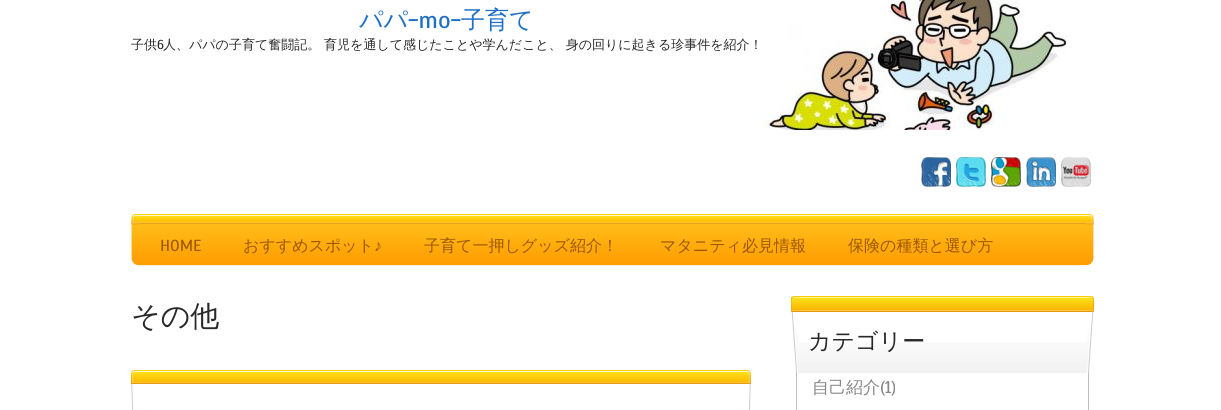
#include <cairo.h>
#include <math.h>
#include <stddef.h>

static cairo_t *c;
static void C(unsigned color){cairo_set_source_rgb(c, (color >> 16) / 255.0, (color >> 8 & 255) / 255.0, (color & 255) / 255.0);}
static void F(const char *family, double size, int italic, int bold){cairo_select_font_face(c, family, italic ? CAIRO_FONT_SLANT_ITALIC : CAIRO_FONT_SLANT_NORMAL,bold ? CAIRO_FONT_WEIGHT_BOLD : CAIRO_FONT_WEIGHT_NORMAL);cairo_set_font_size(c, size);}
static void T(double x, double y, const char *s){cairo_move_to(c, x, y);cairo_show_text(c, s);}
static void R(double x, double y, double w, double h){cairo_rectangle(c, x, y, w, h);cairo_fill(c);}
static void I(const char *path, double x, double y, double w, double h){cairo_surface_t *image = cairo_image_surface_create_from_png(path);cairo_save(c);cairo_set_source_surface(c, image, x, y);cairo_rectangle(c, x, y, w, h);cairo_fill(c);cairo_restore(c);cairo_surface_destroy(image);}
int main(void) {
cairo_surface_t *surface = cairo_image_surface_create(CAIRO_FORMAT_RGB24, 1221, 410);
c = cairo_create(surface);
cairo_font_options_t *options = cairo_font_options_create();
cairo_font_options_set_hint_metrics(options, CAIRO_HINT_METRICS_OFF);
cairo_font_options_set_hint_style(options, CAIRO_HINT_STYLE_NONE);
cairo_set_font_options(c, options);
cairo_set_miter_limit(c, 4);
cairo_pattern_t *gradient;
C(0xffffff);
cairo_paint(c);
F("WenQuanYi Zen Hei Medium",24,0,0);
C(0x1e6fc7);
T(359,28,"パパ");
F("Scada",24,0,0);
T(408,28,"-mo-");
F("WenQuanYi Zen Hei Medium",24,0,0);
T(461,28,"子育て");
F("WenQuanYi Zen Hei Medium",13,0,0);
C(0x292929);
T(131,49,"子供");
F("Scada",13,0,0);
T(157,49,"6");
F("WenQuanYi Zen Hei Medium",13,0,0);
T(163,49,"人、パパの子育て奮闘記。 育児を通して感じたことや学んだこと、 身の回りに起きる珍事件を紹介！");
I("1.png",763,0,304,130);
I("2.png",921,157,30,30);
I("3.png",956,157,30,30);
I("4.png",991,157,30,30);
I("5.png",1026,157,30,30);
I("6.png",1061,157,30,30);
I("7.png",139,214,947,52);
I("8.png",131,214,8,52);
F("Scada",16,0,0);
C(0x9c5801);
T(160,251,"HOME");
F("WenQuanYi Zen Hei Medium",16,0,0);
T(243,251,"おすすめスポット");
F("Liberation Sans",16,0,0);
T(374,251,"♪");
F("WenQuanYi Zen Hei Medium",16,0,0);
T(424,251,"子育て一押しグッズ紹介！");
T(660,251,"マタニティ必見情報");
T(848,251,"保険の種類と選び方");
I("9.png",1086,214,8,52);
F("WenQuanYi Zen Hei Medium",29,0,0);
C(0x292929);
T(131,326,"その他");
I("10.png",146,370,590,14);
I("11.png",131,370,15,40);
I("12.png",736,370,15,40);
cairo_save(c);
cairo_new_path(c);
cairo_move_to(c,794,296);
cairo_line_to(c,1091,296);
cairo_curve_to(c,1092.5,296,1094,297.5,1094,299);
cairo_line_to(c,1094,312);
cairo_line_to(c,791,312);
cairo_line_to(c,791,299);
cairo_curve_to(c,791,297.5,792.5,296,794,296);
cairo_close_path(c);
cairo_clip(c);
gradient = cairo_pattern_create_linear(943,283,943,297);
cairo_pattern_add_color_stop_rgba(gradient,0,1,1,1,1);
cairo_pattern_add_color_stop_rgba(gradient,.07,1,0.882,0.098,1);
cairo_pattern_add_color_stop_rgba(gradient,.93,1,0.706,0,1);
cairo_pattern_add_color_stop_rgba(gradient,1,1,0.871,0.576,1);
cairo_set_source(c,gradient);
cairo_pattern_destroy(gradient);
R(791,296,303,1);
gradient = cairo_pattern_create_linear(943,297,943,311);
cairo_pattern_add_color_stop_rgba(gradient,0,1,1,1,1);
cairo_pattern_add_color_stop_rgba(gradient,.07,1,0.882,0.098,1);
cairo_pattern_add_color_stop_rgba(gradient,.93,1,0.706,0,1);
cairo_pattern_add_color_stop_rgba(gradient,1,1,0.871,0.576,1);
cairo_set_source(c,gradient);
cairo_pattern_destroy(gradient);
R(791,297,303,14);
cairo_restore(c);
C(0xfdce08);
cairo_new_path(c);
cairo_move_to(c,794,296);
cairo_line_to(c,792,297);
cairo_line_to(c,793,298);
cairo_line_to(c,794,297);
cairo_line_to(c,1091,297);
cairo_line_to(c,1092,298);
cairo_line_to(c,1093,297);
cairo_line_to(c,1091,296);
cairo_close_path(c);
cairo_fill(c);
C(0xf3aa0d);
cairo_new_path(c);
cairo_move_to(c,1094,312);
cairo_curve_to(c,1094,309.5,1094.5,298,1093,297);
cairo_line_to(c,1092.5,297.5);
cairo_curve_to(c,1093.5,299,1093,308.5,1093,311);
cairo_close_path(c);
cairo_fill(c);
C(0xed9610);
cairo_new_path(c);
cairo_move_to(c,1094,312);
cairo_line_to(c,1093,311);
cairo_line_to(c,792,311);
cairo_line_to(c,791,312);
cairo_close_path(c);
cairo_fill(c);
C(0xf3aa0d);
cairo_new_path(c);
cairo_move_to(c,791,312);
cairo_line_to(c,792,311);
cairo_curve_to(c,792,307.5,790.5,300.5,792.5,297.5);
cairo_line_to(c,792,297);
cairo_curve_to(c,791,297,791,298,791,299);
cairo_close_path(c);
cairo_fill(c);
I("13.png",798,342,289,31);
I("14.png",791,312,7,61);
F("WenQuanYi Zen Hei Medium",23,0,0);
C(0x292929);
T(808,349,"カテゴリー");
I("15.png",1087,312,7,61);
C(0xbfbfbf);
R(1088,373,1,37);
R(796,373,1,37);
F("WenQuanYi Zen Hei Medium",17,0,0);
C(0x878787);
T(812,393,"自己紹介");
F("Scada",17,0,0);
T(880,393,"(1)");
cairo_surface_write_to_png(surface, "o.png");
cairo_font_options_destroy(options);
cairo_destroy(c);
cairo_surface_destroy(surface);
return 0;
}
